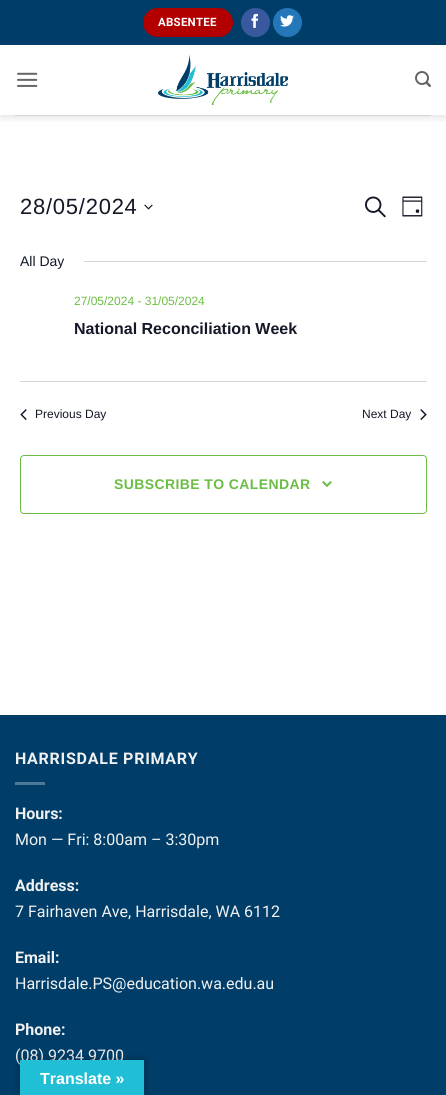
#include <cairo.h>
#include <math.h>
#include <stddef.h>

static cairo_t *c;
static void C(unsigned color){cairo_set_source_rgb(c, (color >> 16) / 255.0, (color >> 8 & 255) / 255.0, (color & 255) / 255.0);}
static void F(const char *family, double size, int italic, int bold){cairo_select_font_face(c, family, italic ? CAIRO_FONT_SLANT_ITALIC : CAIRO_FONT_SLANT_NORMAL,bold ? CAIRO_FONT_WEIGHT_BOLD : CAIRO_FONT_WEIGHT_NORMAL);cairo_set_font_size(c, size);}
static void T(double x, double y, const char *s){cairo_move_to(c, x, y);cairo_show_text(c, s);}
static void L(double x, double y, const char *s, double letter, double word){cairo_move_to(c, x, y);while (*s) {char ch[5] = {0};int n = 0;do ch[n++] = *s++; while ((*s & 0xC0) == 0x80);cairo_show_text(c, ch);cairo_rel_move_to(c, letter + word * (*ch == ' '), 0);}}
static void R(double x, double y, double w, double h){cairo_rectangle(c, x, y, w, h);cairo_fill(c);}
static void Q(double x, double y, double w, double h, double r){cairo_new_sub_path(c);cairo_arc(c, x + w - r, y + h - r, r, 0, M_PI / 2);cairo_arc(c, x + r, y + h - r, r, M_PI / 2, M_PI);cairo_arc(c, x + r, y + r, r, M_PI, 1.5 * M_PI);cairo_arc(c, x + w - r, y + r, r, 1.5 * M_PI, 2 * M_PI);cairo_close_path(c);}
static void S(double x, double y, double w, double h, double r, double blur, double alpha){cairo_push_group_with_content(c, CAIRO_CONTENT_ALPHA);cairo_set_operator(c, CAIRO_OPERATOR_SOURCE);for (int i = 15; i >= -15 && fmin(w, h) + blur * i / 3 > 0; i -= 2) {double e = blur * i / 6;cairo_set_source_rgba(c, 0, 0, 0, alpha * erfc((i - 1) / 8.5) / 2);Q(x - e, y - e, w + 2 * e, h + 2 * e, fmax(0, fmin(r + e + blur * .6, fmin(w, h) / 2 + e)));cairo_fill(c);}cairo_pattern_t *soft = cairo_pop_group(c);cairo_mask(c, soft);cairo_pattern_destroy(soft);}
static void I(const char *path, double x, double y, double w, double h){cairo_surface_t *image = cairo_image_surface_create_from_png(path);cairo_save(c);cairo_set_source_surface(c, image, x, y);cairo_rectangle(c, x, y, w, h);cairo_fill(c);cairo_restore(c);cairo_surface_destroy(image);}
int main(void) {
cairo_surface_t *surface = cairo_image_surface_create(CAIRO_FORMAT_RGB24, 446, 1095);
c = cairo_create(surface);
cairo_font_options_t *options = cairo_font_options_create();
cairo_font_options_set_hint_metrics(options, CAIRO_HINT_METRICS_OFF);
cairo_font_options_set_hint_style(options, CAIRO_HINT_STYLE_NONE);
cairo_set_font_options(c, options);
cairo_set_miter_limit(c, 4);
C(0xffffff);
cairo_paint(c);
cairo_save(c);
cairo_rectangle(c,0,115,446,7);
cairo_clip(c);
C(0x000000);
S(1,1,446,115,0,5,.15);
cairo_restore(c);
C(0x003e69);
R(0,0,446,45);
C(0xb20000);
Q(143,8,90,29,14.5);
cairo_fill(c);
cairo_rectangle(c,143.5,8.5,89,28);
cairo_set_source_rgba(c,0,0,0,0.05);
cairo_set_line_width(c,1);
cairo_stroke(c);
F("Roboto",11.5,0,1);
C(0xffffff);
L(158,26,"ABSENTEE",.25,0);
C(0x3a589d);
cairo_new_path(c);
cairo_arc(c,255.5,22.5,14,0,2 * M_PI);
cairo_fill_preserve(c);
cairo_stroke(c);
I("1.png",251,13,7,15);
C(0x2478ba);
cairo_arc(c,287.5,22.5,14,0,2 * M_PI);
cairo_fill_preserve(c);
cairo_stroke(c);
I("2.png",280,15,14,12);
I("3.png",17,72,21,15);
I("4.png",158,55,130,50);
I("5.png",415,71,16,16);
C(0xd6d6d6);
R(15,115,416,1);
F("Liberation Sans",22,0,0);
C(0x141827);
L(20,214,"28/05/2024",.75,0);
I("6.png",144,204,9,6);
I("7.png",365,196,21,22);
I("8.png",402,196,21,21);
F("Liberation Sans",14,0,0);
T(20,266,"All Day");
C(0xd5d5d5);
R(84,261,343,1);
F("Liberation Sans",12,0,0);
C(0x6cbd45);
T(74,305,"27/05/2024 - 31/05/2024");
F("Liberation Sans",16,0,1);
C(0x141827);
T(74,334,"National Reconciliation Week");
C(0xd5d5d5);
R(20,381,407,1);
I("9.png",20,409,7,11);
F("Liberation Sans",12,0,0);
C(0x141827);
T(35,418,"Previous Day");
T(362,418,"Next Day");
I("10.png",420,409,7,11);
Q(20.5,455.5,406,58,3.5);
C(0x6cbd45);
cairo_stroke(c);
F("Liberation Sans",14,0,1);
L(114,489,"SUBSCRIBE TO CALENDAR",.4,0);
I("11.png",322,481,10,6);
C(0x003e69);
R(0,716,446,379);
C(0x003b64);
R(0,715,446,1);
F("Roboto",16,0,1);
C(0xf1f1f1);
L(15,764,"HARRISDALE PRIMARY",.75,0);
C(0x4d7896);
R(15,782,30,3);
C(0xf1f1f1);
T(15,819,"Hours:");
F("Roboto",16,0,0);
T(15,845,"Mon — Fri: 8:00am – 3:30pm");
F("Roboto",16,0,1);
T(15,891,"Address:");
F("Roboto",16,0,0);
T(15,917,"7 Fairhaven Ave, Harrisdale, WA 6112");
F("Roboto",16,0,1);
T(15,963,"Email:");
F("Roboto",16,0,0);
T(15,989,"Harrisdale.PS@education.wa.edu.au");
F("Roboto",16,0,1);
T(15,1035,"Phone:");
F("Roboto",16,0,0);
T(15,1061,"(08) 9234 9700");
C(0x000000);
S(20,1060,124,35,0,4.5,.3);
C(0x21bfd5);
R(20,1060,124,35);
F("Liberation Sans",16,0,1);
C(0xffffff);
T(40,1084,"Translate »");
cairo_surface_write_to_png(surface, "o.png");
cairo_font_options_destroy(options);
cairo_destroy(c);
cairo_surface_destroy(surface);
return 0;
}
